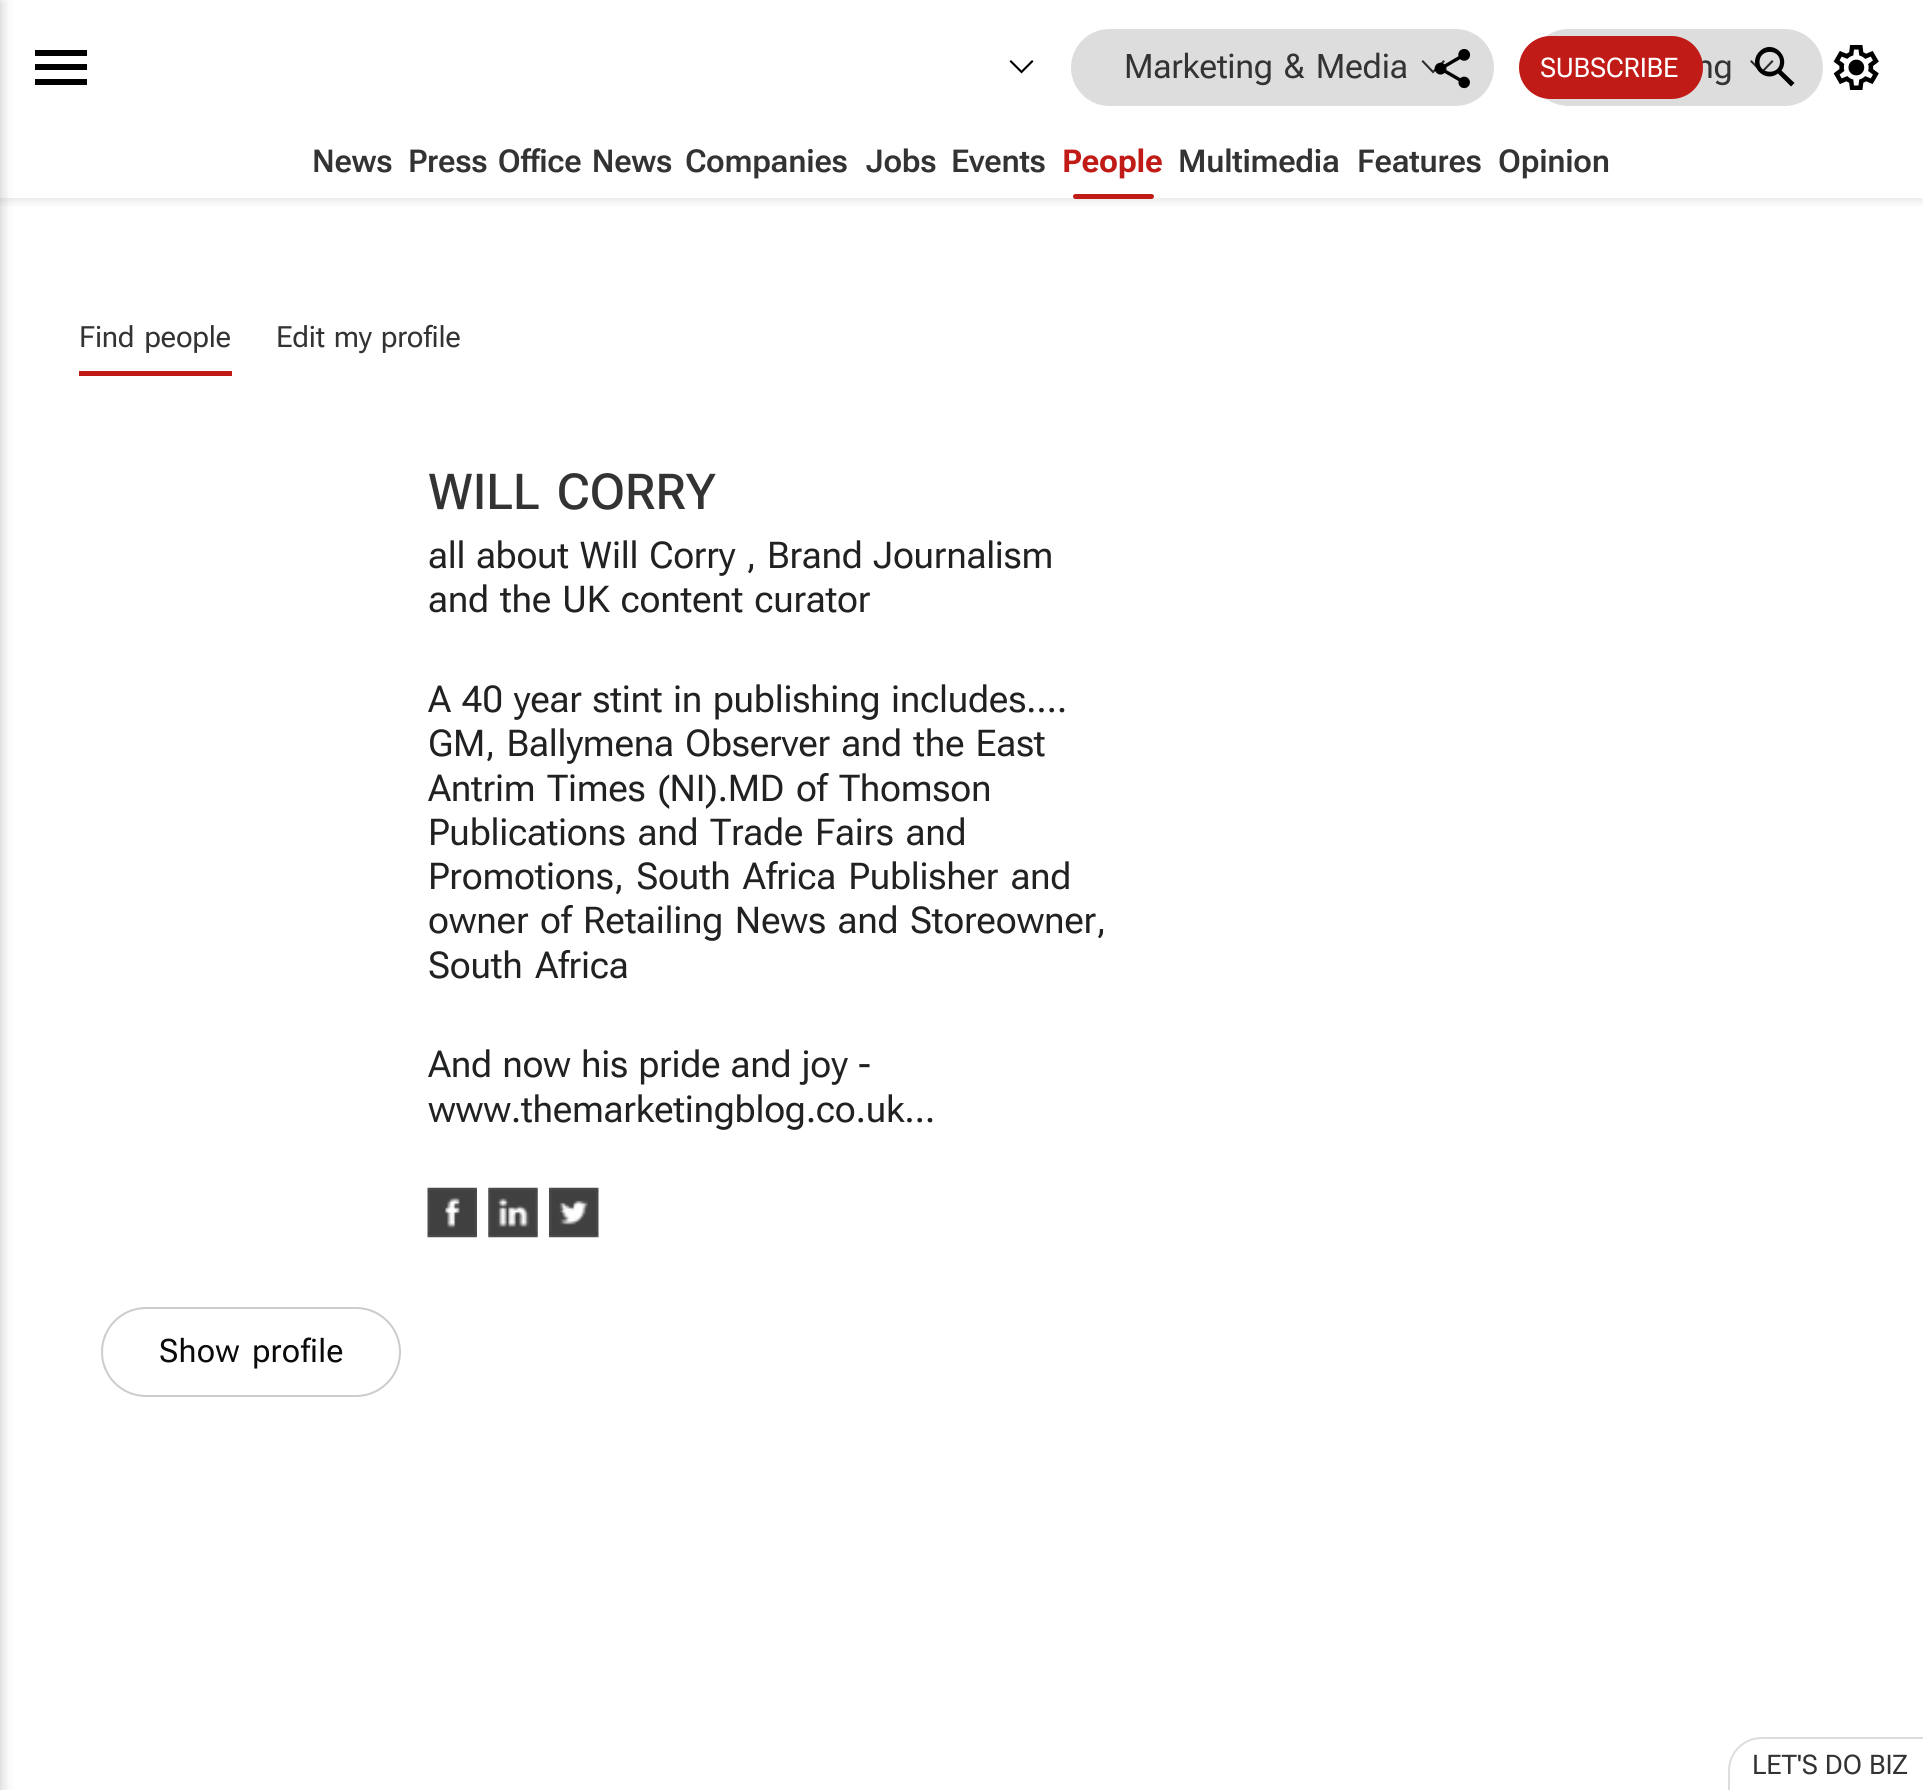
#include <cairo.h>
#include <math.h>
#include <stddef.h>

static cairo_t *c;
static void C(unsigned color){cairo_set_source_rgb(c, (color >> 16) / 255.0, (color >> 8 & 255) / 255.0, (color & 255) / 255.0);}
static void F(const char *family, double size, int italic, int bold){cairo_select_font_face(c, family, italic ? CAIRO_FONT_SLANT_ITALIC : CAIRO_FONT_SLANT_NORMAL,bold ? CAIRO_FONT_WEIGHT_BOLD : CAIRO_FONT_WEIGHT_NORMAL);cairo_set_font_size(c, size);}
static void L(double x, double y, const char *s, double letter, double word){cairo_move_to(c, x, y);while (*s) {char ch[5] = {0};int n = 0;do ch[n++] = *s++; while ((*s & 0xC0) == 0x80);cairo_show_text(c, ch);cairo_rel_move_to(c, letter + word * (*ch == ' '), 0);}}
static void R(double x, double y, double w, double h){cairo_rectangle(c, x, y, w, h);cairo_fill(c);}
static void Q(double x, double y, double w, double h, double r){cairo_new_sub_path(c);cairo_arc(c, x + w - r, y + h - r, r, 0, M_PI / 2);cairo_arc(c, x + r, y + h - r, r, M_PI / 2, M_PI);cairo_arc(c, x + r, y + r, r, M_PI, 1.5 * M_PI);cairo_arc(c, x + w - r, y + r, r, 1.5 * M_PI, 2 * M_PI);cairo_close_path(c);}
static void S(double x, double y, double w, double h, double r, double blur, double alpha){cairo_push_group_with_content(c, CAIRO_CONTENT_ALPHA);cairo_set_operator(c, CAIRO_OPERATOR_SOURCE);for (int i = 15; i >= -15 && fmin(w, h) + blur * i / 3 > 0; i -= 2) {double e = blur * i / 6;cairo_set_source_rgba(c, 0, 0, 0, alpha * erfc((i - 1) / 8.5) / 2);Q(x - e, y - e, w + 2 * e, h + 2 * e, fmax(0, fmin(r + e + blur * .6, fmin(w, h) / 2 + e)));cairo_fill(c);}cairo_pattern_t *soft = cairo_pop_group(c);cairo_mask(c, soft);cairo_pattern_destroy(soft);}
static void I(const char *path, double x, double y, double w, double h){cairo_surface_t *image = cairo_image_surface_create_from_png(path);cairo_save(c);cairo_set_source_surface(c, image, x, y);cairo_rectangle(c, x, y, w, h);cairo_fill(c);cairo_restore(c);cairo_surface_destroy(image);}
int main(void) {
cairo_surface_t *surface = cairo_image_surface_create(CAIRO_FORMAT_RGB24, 1923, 1790);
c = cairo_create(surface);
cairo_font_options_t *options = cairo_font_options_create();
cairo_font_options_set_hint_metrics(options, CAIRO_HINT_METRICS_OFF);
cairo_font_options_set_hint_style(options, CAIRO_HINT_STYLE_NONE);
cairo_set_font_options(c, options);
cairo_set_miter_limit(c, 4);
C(0xffffff);
cairo_paint(c);
cairo_save(c);
cairo_rectangle(c,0,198,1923,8);
cairo_clip(c);
C(0x414549);
S(-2,0,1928,203,0,3.5,.1);
cairo_restore(c);
C(0x202124);
S(-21,2,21,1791,0,7,.28);
C(0x000000);
cairo_new_path(c);
cairo_move_to(c,35,85);
cairo_line_to(c,35,79);
cairo_line_to(c,87,79);
cairo_line_to(c,87,85);
cairo_close_path(c);
cairo_move_to(c,35,70);
cairo_line_to(c,35,64);
cairo_line_to(c,87,64);
cairo_line_to(c,87,70);
cairo_close_path(c);
cairo_move_to(c,35,56);
cairo_line_to(c,35,50);
cairo_line_to(c,87,50);
cairo_line_to(c,87,56);
cairo_close_path(c);
cairo_fill(c);
cairo_new_path(c);
cairo_move_to(c,1021.5,73.5);
cairo_line_to(c,1009.5,61.5);
cairo_line_to(c,1011,60);
cairo_line_to(c,1021.5,70.5);
cairo_line_to(c,1032,60);
cairo_line_to(c,1033.5,61.5);
cairo_close_path(c);
cairo_fill(c);
C(0xdddddd);
Q(1071,29,423,77,38.5);
cairo_fill(c);
F("Roboto Flex",33.75,0,0);
C(0x333333);
L(1124,78,"Marketing & Media",-.25,3);
C(0x2c2c2c);
cairo_new_path(c);
cairo_move_to(c,1433,73.5);
cairo_line_to(c,1421.5,61.5);
cairo_line_to(c,1423,60);
cairo_line_to(c,1433,70.5);
cairo_line_to(c,1443.5,60);
cairo_line_to(c,1445,61.5);
cairo_close_path(c);
cairo_fill(c);
C(0xdddddd);
Q(1530,29,293,77,38.5);
cairo_fill(c);
C(0x333333);
L(1695,78,"ng",-.25,0);
C(0x2c2c2c);
cairo_new_path(c);
cairo_move_to(c,1762,73.5);
cairo_line_to(c,1750,61.5);
cairo_line_to(c,1751.5,60);
cairo_line_to(c,1762,70.5);
cairo_line_to(c,1772,60);
cairo_line_to(c,1773.5,61.5);
cairo_close_path(c);
cairo_fill(c);
I("1.png",1434,48,37,41);
C(0xc11b17);
Q(1519,36,184,63,31.5);
cairo_fill(c);
F("Roboto Flex",27,0,0);
C(0xffffff);
L(1540,77,"SUBSCRIBE",-.25,0);
C(0x000000);
cairo_new_path(c);
cairo_move_to(c,1794.5,83);
cairo_line_to(c,1781.5,70.5);
cairo_curve_to(c,1791.5,56,1772,38.5,1759.5,51.5);
cairo_curve_to(c,1746.5,64.5,1764,84,1778,73.5);
cairo_line_to(c,1791,86.5);
cairo_close_path(c);
cairo_move_to(c,1759.5,62);
cairo_curve_to(c,1759.5,48.5,1780,48.5,1780,62);
cairo_curve_to(c,1780,75,1759.5,75,1759.5,62);
cairo_close_path(c);
cairo_fill(c);
I("2.png",1833,45,46,45);
F("Roboto Flex SemiBold",31.5,0,0);
C(0x333333);
L(312,172,"News",-.25,0);
L(408,172,"Press Office News",-.25,3);
L(685,172,"Companies",-.25,0);
L(866,172,"Jobs",-.25,0);
L(951,172,"Events",-.25,0);
F("Roboto Flex",31.5,0,1);
C(0xc11b17);
L(1062,172,"People",-.25,0);
Q(1073,194,81,5,2.5);
cairo_fill(c);
F("Roboto Flex SemiBold",31.5,0,0);
C(0x333333);
L(1178,172,"Multimedia",-.25,0);
L(1357,172,"Features",-.25,0);
L(1498,172,"Opinion",-.25,0);
C(0xc11b17);
R(79,371,153,5);
F("Roboto Flex",29.25,0,0);
C(0x333333);
L(79,347,"Find people",-.25,3);
L(276,347,"Edit my profile",-.25,2);
F("Roboto Flex Medium",49.5,0,0);
L(428,509,"WILL CORRY",-.25,5);
F("Roboto Flex",36.9,0,0);
C(0x202122);
L(428,568,"all about Will Corry , Brand Journalism",-.25,2);
L(428,612,"and the UK content curator",-.25,2.5);
L(428,712,"A 40 year stint in publishing includes....",-.25,2);
L(428,756,"GM, Ballymena Observer and the East",-.25,2.5);
L(428,801,"Antrim Times (NI).MD of Thomson",-.25,3);
L(428,845,"Publications and Trade Fairs and",-.25,3);
L(428,889,"Promotions, South Africa Publisher and",-.25,3.5);
L(428,933,"owner of Retailing News and Storeowner,",-.25,3);
L(428,978,"South Africa",-.25,4);
L(428,1077,"And now his pride and joy -",-.25,1.5);
L(428,1122,"www.themarketingblog.co.uk...",-.25,0);
I("3.png",427,1187,50,51);
I("4.png",488,1187,50,51);
I("5.png",549,1187,50,51);
Q(102,1308,298,88,44);
C(0xcccccc);
cairo_stroke(c);
F("Roboto Flex",32.25,0,0);
C(0x0a0a0a);
L(159,1362,"Show profile",.25,4);
C(0xdddddd);
cairo_set_fill_rule(c,CAIRO_FILL_RULE_EVEN_ODD);
cairo_new_path(c);
cairo_move_to(c,1762,1737);
cairo_line_to(c,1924,1737);
cairo_line_to(c,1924,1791);
cairo_line_to(c,1728,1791);
cairo_line_to(c,1728,1771);
cairo_curve_to(c,1728,1752,1743,1737,1762,1737);
cairo_close_path(c);
cairo_move_to(c,1762,1739);
cairo_line_to(c,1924,1739);
cairo_line_to(c,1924,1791);
cairo_line_to(c,1730,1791);
cairo_line_to(c,1730,1771);
cairo_curve_to(c,1730,1753,1744,1739,1762,1739);
cairo_close_path(c);
cairo_fill(c);
F("Roboto Flex",27,0,0);
C(0x333333);
L(1752,1774,"LET'S DO BIZ",-.25,1);
cairo_surface_write_to_png(surface, "o.png");
cairo_font_options_destroy(options);
cairo_destroy(c);
cairo_surface_destroy(surface);
return 0;
}
